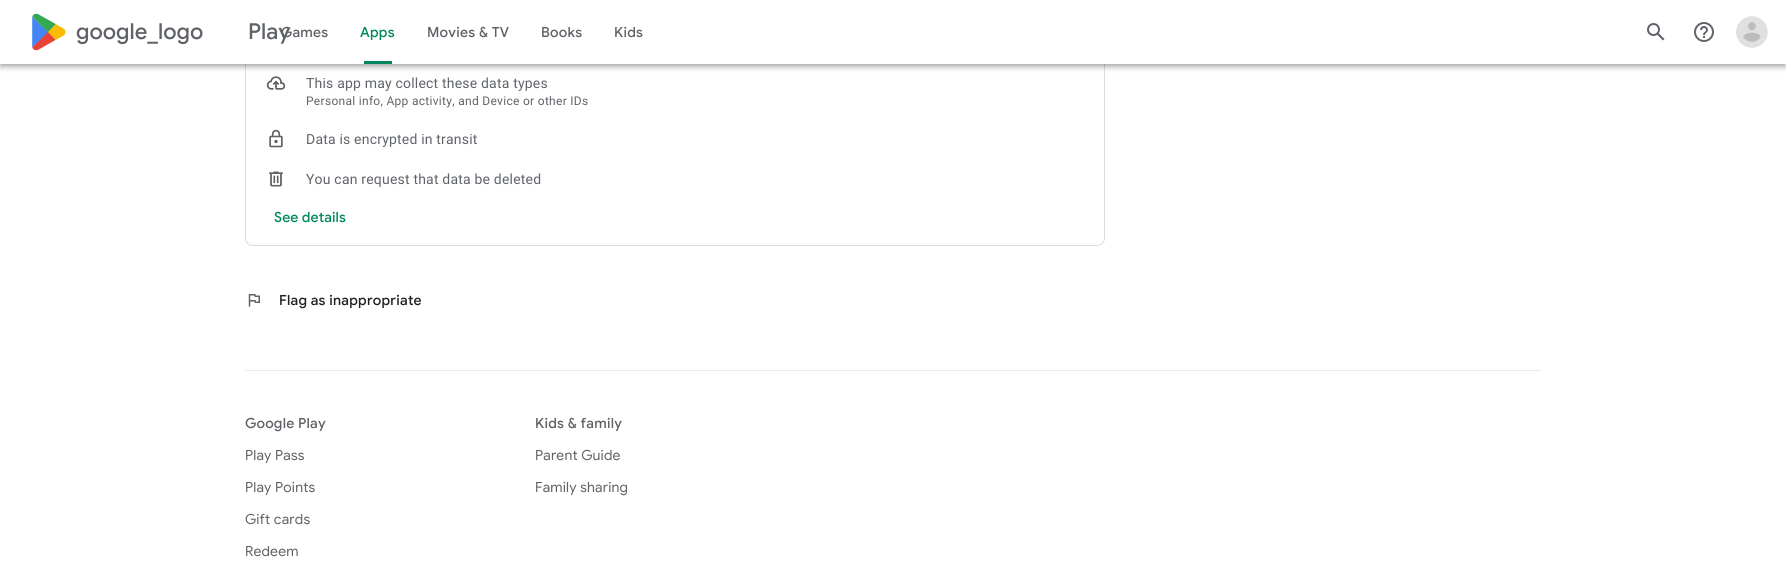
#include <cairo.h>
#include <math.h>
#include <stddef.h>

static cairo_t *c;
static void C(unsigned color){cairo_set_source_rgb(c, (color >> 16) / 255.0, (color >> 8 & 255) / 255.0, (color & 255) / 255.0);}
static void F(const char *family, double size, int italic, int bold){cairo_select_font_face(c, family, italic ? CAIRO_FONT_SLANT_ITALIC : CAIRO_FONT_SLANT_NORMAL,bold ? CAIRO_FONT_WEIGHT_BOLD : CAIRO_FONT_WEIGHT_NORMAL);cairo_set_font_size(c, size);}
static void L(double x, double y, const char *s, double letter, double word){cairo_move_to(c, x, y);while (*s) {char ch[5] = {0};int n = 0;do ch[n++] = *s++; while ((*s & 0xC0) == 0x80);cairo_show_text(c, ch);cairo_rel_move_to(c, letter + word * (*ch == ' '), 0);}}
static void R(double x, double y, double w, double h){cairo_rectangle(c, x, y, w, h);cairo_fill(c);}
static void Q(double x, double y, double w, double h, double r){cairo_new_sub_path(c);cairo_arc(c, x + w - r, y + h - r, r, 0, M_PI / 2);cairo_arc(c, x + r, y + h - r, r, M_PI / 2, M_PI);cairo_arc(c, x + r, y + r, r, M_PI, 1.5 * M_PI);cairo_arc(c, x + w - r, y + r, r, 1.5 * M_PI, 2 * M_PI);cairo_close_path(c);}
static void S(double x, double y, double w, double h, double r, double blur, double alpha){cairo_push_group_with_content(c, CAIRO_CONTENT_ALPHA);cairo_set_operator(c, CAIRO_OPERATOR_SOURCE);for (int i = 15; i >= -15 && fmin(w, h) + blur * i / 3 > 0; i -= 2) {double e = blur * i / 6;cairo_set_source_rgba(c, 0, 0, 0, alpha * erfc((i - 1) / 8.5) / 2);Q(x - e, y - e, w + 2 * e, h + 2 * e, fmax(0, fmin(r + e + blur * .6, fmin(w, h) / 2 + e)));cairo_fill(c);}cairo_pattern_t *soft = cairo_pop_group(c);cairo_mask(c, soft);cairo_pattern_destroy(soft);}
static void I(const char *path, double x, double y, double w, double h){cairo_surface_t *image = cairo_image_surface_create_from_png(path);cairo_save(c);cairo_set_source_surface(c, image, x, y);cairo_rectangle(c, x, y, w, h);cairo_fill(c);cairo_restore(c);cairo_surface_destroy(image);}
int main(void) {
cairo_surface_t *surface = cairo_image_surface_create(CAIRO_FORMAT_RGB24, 1786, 578);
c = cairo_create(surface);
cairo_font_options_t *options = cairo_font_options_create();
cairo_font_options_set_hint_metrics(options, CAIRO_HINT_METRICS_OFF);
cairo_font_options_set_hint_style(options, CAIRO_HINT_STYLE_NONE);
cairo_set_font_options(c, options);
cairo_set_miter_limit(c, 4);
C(0xffffff);
cairo_paint(c);
Q(245.5,-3.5,859,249,7.5);
C(0xdadce0);
cairo_set_line_width(c,1);
cairo_stroke(c);
C(0x000000);
S(1,3,1784,62,0,2,.2);
I("5.png",266,76,20,14);
S(0,1,1786,64,0,5,.12);
S(0,4,1786,64,0,2.5,.14);
C(0xffffff);
R(0,0,1786,64);
I("1.png",32,13,34,38);
F("Google Sans Medium",22,0,0);
C(0x5f6368);
L(76,39,"google_logo",0,55);
L(248,39,"Play",0,55);
F("Google Sans Medium",14,0,0);
L(281,37,"Games",.25,0);
C(0x01875f);
L(360,37,"Apps",.25,0);
R(364,61,28,3);
C(0x5f6368);
L(427,37,"Movies & TV",.25,0);
L(541,37,"Books",.25,0);
L(614,37,"Kids",.25,0);
I("2.png",1647,23,18,18);
I("3.png",1694,22,20,20);
I("4.png",1736,16,32,32);
F("Roboto",14,0,0);
L(306,88,"This app may collect these data types",.2,0);
F("Roboto",12,0,0);
L(306,105,"Personal info, App activity, and Device or other IDs",.3,0);
I("6.png",269,129,14,19);
F("Roboto",14,0,0);
L(306,144,"Data is encrypted in transit",.2,0);
I("7.png",269,171,14,16);
L(306,184,"You can request that data be deleted",.2,0);
F("Google Sans Medium",14,0,0);
C(0x01875f);
L(274,222,"See details",.1,0);
I("8.png",248,294,12,13);
C(0x202124);
L(279,305,"Flag as inappropriate",.25,0);
C(0xe8eaed);
R(245,370,1296,1);
C(0x5f6368);
L(245,428,"Google Play",.25,0);
F("Google Sans",14,0,0);
L(245,460,"Play Pass",.2,0);
L(245,492,"Play Points",.2,0);
L(245,524,"Gift cards",.2,0);
L(245,556,"Redeem",.2,0);
F("Google Sans Medium",14,0,0);
L(535,428,"Kids & family",.25,0);
F("Google Sans",14,0,0);
L(535,460,"Parent Guide",.2,0);
L(535,492,"Family sharing",.2,0);
cairo_surface_write_to_png(surface, "o.png");
cairo_font_options_destroy(options);
cairo_destroy(c);
cairo_surface_destroy(surface);
return 0;
}
